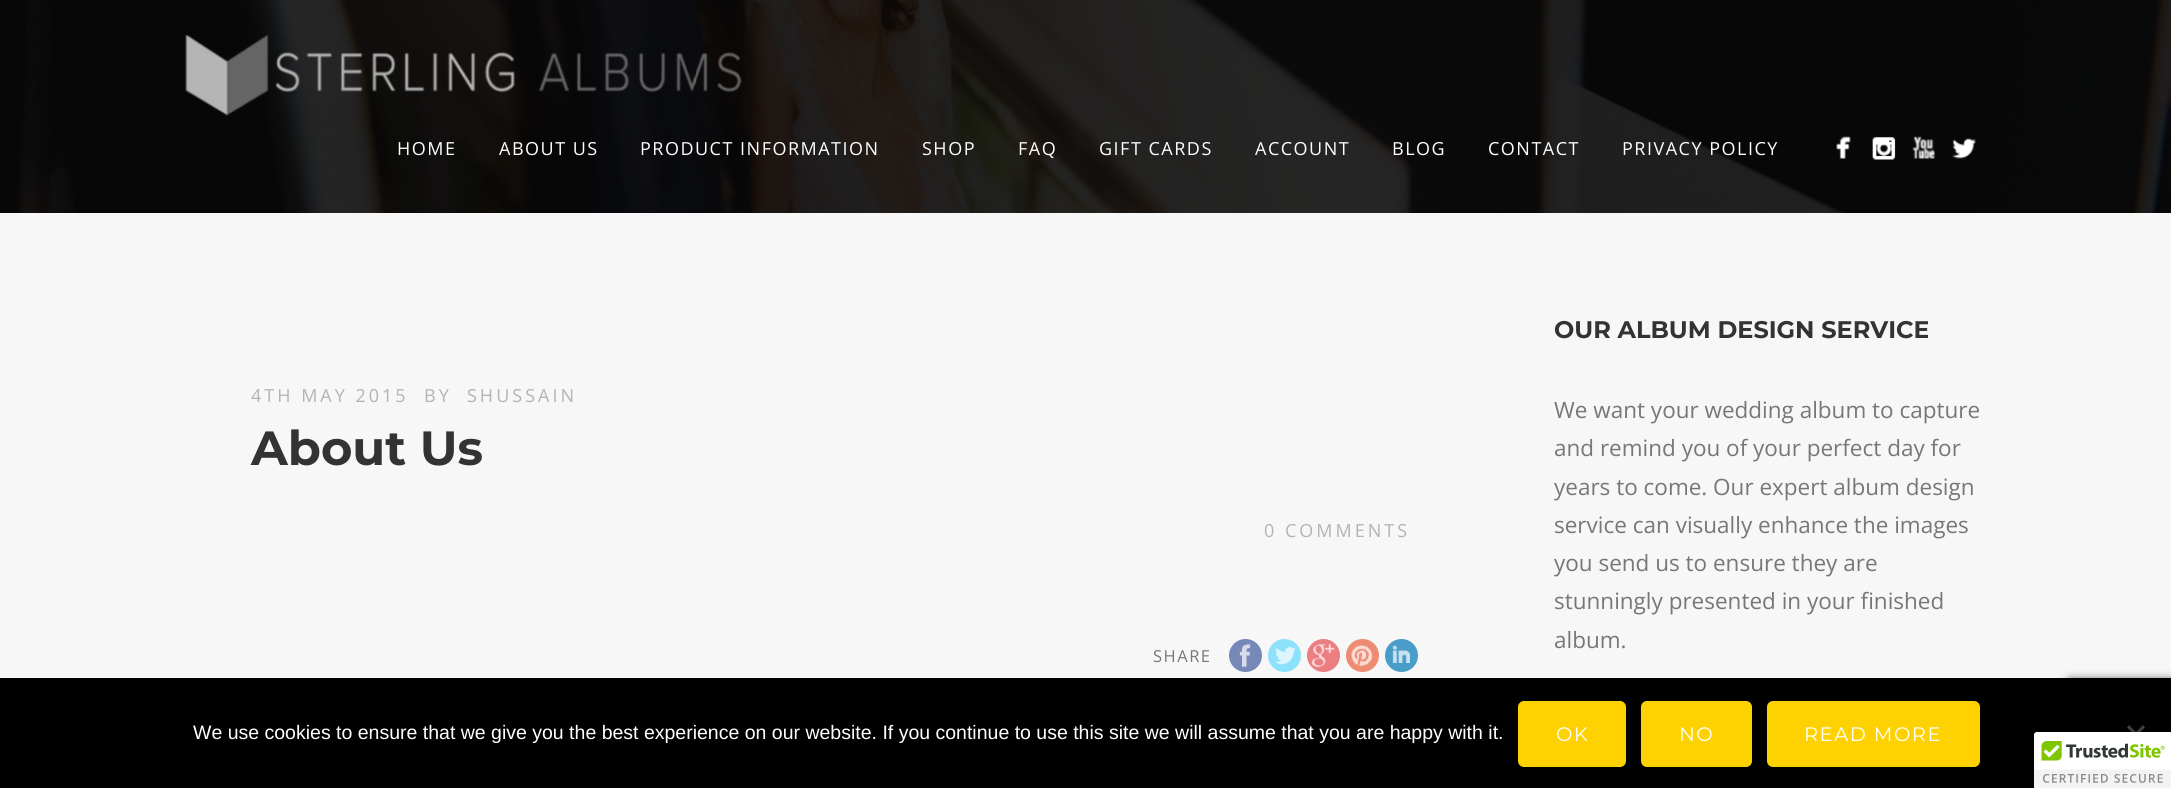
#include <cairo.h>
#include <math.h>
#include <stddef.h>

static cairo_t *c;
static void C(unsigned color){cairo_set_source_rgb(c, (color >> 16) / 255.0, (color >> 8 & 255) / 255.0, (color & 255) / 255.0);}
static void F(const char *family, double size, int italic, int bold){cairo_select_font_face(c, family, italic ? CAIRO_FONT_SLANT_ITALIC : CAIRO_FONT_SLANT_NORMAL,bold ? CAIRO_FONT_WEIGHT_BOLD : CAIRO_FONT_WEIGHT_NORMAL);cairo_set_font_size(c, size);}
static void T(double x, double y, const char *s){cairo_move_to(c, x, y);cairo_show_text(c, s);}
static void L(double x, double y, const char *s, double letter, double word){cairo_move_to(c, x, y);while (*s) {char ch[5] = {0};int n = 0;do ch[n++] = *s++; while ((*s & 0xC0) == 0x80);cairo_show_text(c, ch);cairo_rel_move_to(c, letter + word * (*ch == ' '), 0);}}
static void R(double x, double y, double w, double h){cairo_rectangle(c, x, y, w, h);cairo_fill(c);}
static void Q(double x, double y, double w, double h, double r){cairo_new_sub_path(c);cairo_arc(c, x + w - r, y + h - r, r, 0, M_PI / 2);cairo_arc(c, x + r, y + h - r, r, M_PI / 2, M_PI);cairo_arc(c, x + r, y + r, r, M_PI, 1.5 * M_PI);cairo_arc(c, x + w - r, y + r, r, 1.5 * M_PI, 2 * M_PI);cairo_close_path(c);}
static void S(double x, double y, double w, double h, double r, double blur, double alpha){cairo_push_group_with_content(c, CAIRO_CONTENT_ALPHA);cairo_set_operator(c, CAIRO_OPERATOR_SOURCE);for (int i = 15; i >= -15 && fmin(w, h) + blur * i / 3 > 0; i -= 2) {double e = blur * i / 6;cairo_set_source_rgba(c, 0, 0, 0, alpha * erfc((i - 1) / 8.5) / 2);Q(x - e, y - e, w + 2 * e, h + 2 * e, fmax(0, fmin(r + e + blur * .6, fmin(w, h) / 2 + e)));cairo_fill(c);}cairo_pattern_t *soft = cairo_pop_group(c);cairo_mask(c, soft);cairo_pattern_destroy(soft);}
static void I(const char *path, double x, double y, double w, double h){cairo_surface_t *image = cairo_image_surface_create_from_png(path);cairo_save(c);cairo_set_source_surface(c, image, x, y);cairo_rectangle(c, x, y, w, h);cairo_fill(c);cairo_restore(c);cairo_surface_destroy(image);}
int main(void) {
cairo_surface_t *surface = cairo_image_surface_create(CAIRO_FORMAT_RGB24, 2171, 788);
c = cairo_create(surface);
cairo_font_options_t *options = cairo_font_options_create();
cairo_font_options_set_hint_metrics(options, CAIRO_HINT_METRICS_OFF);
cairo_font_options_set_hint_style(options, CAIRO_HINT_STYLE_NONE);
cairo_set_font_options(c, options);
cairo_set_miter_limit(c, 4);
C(0xf7f7f7);
cairo_paint(c);
C(0x0b0b0b);
R(0,0,2171,213);
I("1.png",0,0,2171,213);
I("2.png",185,35,557,81);
F("Open Sans",18,0,0);
C(0xffffff);
L(397,155,"HOME",1.5,0);
L(499,155,"ABOUT US",1.5,0);
L(640,155,"PRODUCT INFORMATION",1.5,0);
L(922,155,"SHOP",1.5,0);
L(1018,155,"FAQ",1.5,0);
L(1099,155,"GIFT CARDS",1.5,0);
L(1255,155,"ACCOUNT",1.5,0);
L(1392,155,"BLOG",1.5,0);
L(1488,155,"CONTACT",1.5,0);
L(1622,155,"PRIVACY POLICY",1.5,0);
I("3.png",1836,136,15,23);
I("4.png",1872,137,24,23);
I("5.png",1912,136,23,23);
I("6.png",1952,138,24,21);
C(0xb3b3b1);
L(251,402,"4TH MAY 2015",3,0);
L(424,402,"BY",3,0);
L(467,402,"SHUSSAIN",3,0);
F("Montserrat",48,0,1);
C(0x333332);
T(251,465,"About Us");
F("Open Sans",18,0,0);
C(0xb3b3b1);
L(1264,537,"0 COMMENTS",3,0);
F("Open Sans",16.5,0,0);
C(0x777777);
L(1153,662,"SHARE",1.5,0);
C(0x7588b7);
cairo_new_path(c);
cairo_arc(c,1245.5,655.5,16.5,0,2 * M_PI);
cairo_fill(c);
I("7.png",1239,644,12,23);
C(0x8de1fb);
cairo_arc(c,1284.5,655.5,16.5,0,2 * M_PI);
cairo_fill(c);
I("8.png",1275,646,21,19);
C(0xea7e81);
cairo_arc(c,1323.5,655.5,16.5,0,2 * M_PI);
cairo_fill(c);
I("9.png",1311,644,24,23);
C(0xed8b73);
cairo_arc(c,1362.5,655.5,16.5,0,2 * M_PI);
cairo_fill(c);
I("10.png",1351,645,22,21);
C(0x4b9dc9);
cairo_arc(c,1401.5,655.5,16.5,0,2 * M_PI);
cairo_fill(c);
I("11.png",1392,645,18,18);
F("Montserrat",24,0,1);
C(0x333332);
T(1554,338,"OUR ALBUM DESIGN SERVICE");
F("Open Sans",22.5,0,0);
C(0x777777);
T(1554,418,"We want your wedding album to capture");
T(1554,456,"and remind you of your perfect day for");
T(1554,495,"years to come. Our expert album design");
T(1554,533,"service can visually enhance the images");
T(1554,571,"you send us to ensure they are");
T(1554,609,"stunningly presented in your finished");
T(1554,648,"album.");
C(0x808080);
S(2067,678,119,90,3,4,1);
C(0x000000);
R(0,678,2171,110);
F("Liberation Sans",19.5,0,0);
C(0xffffff);
T(193,739,"We use cookies to ensure that we give you the best experience on our website. If you continue to use this site we will assume that you are happy with it.");
C(0xfdd200);
Q(1518,701,108,66,6);
cairo_fill(c);
F("Montserrat",19.5,0,0);
C(0xffffff);
L(1556,741,"OK",1.5,0);
C(0xfdd200);
Q(1641,701,111,66,6);
cairo_fill(c);
C(0xffffff);
L(1679,741,"NO",1.5,0);
C(0xfdd200);
Q(1767,701,213,66,6);
cairo_fill(c);
C(0xffffff);
L(1804,741,"READ MORE",1.5,0);
C(0x404040);
cairo_new_path(c);
cairo_move_to(c,2143,725);
cairo_line_to(c,2145,727.5);
cairo_line_to(c,2129,743.5);
cairo_line_to(c,2127,741);
cairo_close_path(c);
cairo_fill(c);
cairo_new_path(c);
cairo_move_to(c,2127,727.5);
cairo_line_to(c,2129,725);
cairo_line_to(c,2145,741);
cairo_line_to(c,2143,743.5);
cairo_close_path(c);
cairo_fill(c);
C(0x000000);
S(2034,732,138,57,3,4,.2);
C(0xffffff);
cairo_new_path(c);
cairo_move_to(c,2037,732);
cairo_line_to(c,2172,732);
cairo_line_to(c,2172,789);
cairo_line_to(c,2034,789);
cairo_line_to(c,2034,735);
cairo_curve_to(c,2034,733.5,2035.5,732,2037,732);
cairo_close_path(c);
cairo_fill(c);
I("12.png",2034,732,137,56);
cairo_surface_write_to_png(surface, "o.png");
cairo_font_options_destroy(options);
cairo_destroy(c);
cairo_surface_destroy(surface);
return 0;
}
